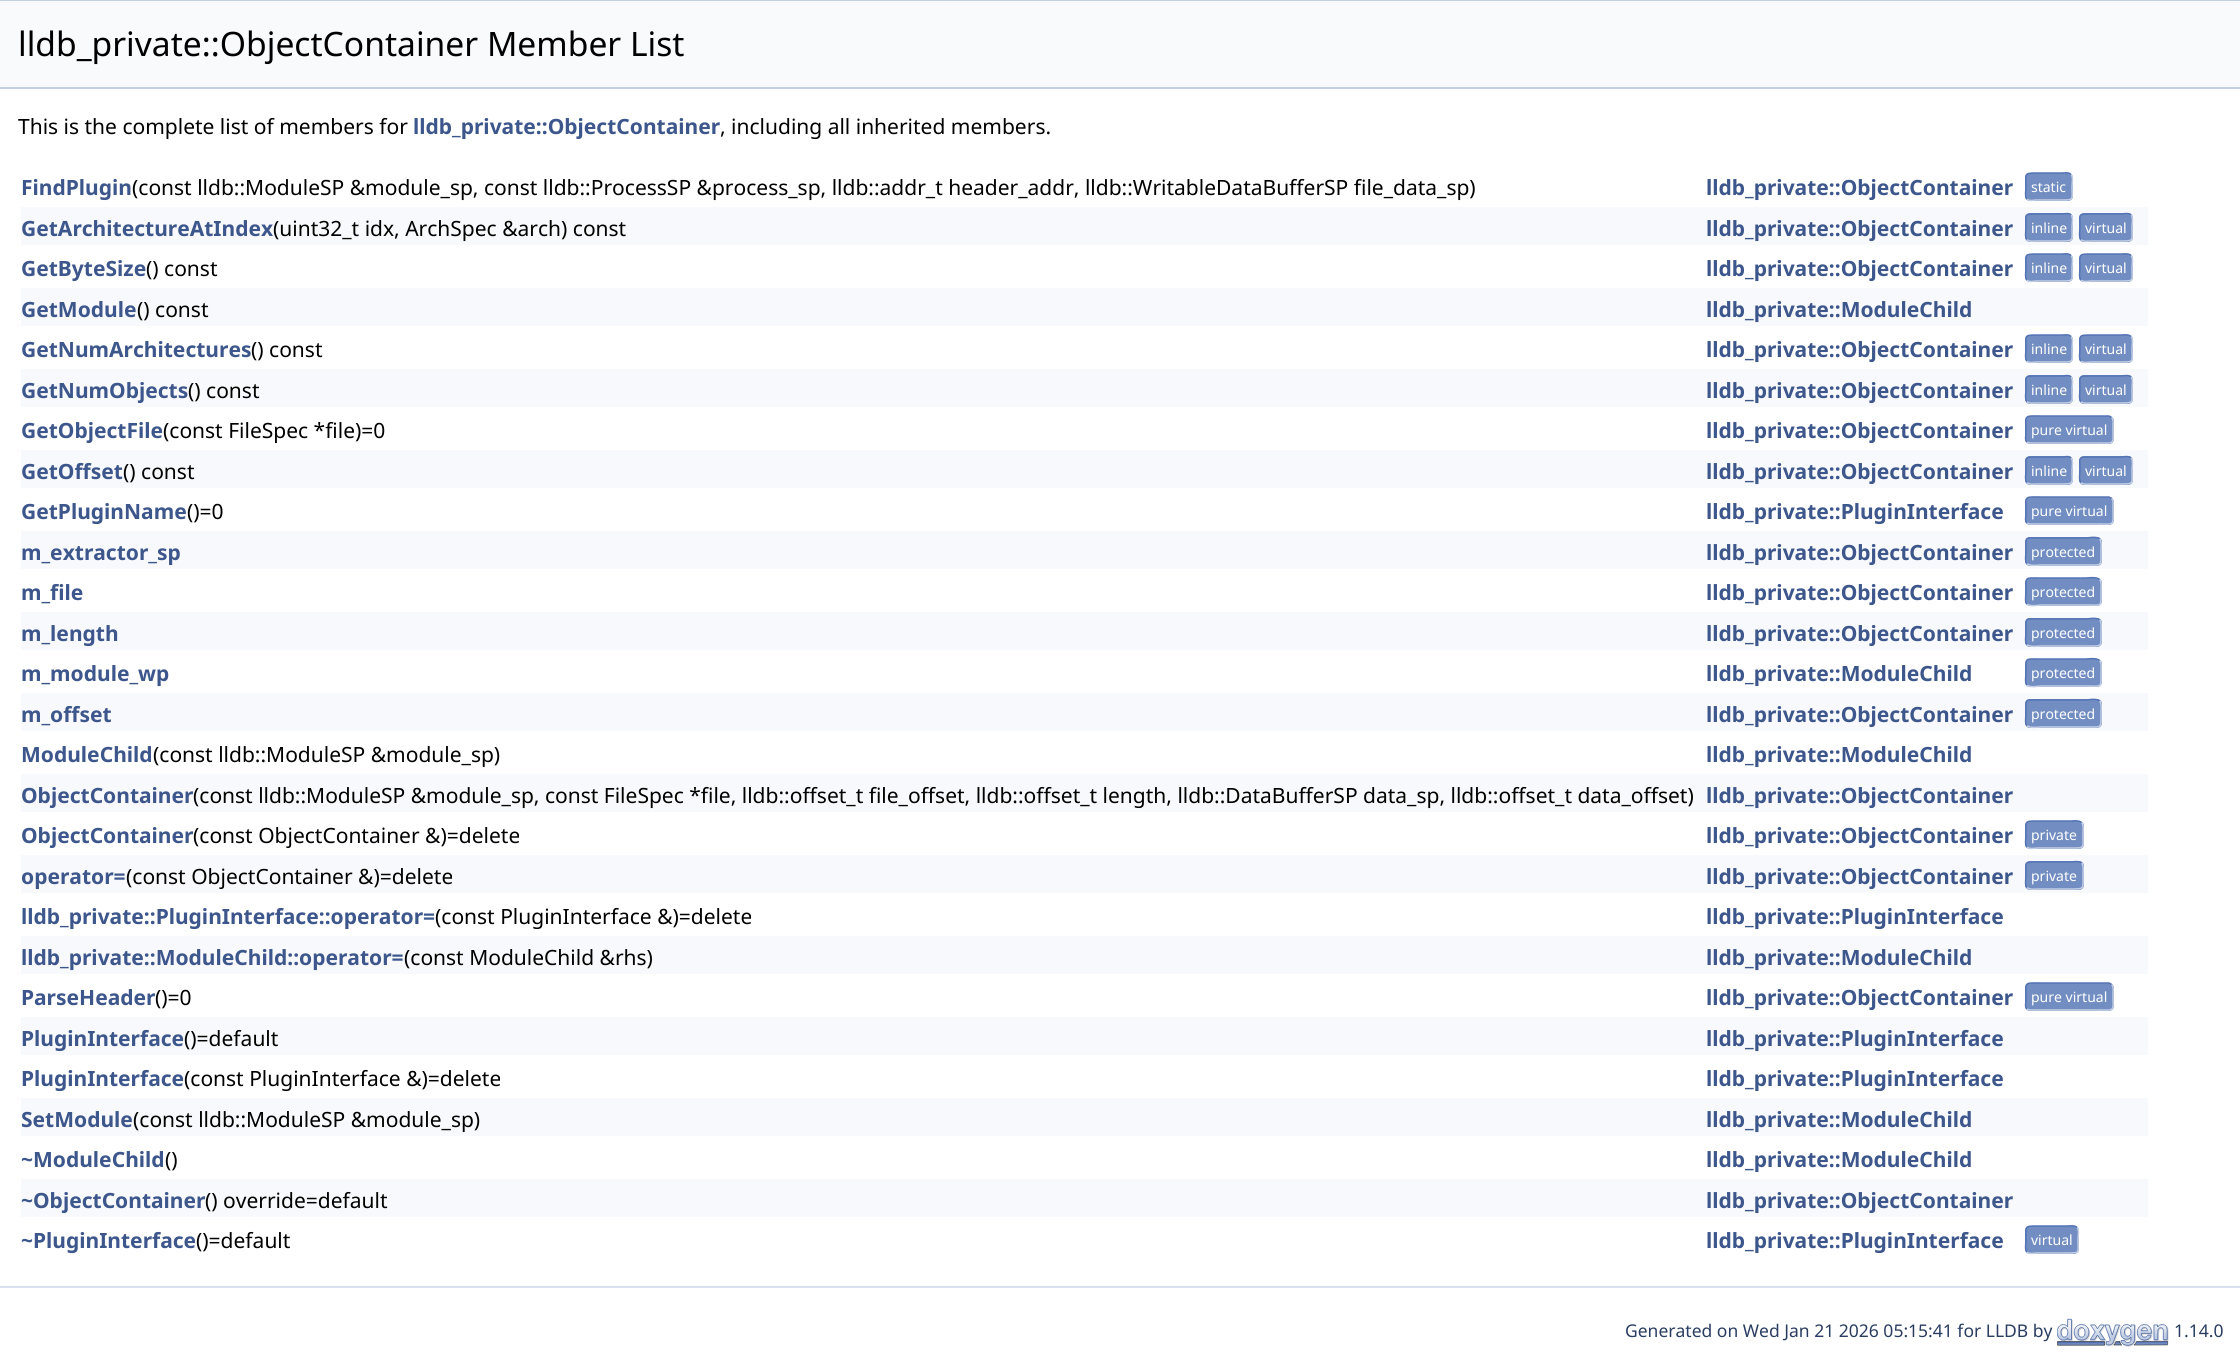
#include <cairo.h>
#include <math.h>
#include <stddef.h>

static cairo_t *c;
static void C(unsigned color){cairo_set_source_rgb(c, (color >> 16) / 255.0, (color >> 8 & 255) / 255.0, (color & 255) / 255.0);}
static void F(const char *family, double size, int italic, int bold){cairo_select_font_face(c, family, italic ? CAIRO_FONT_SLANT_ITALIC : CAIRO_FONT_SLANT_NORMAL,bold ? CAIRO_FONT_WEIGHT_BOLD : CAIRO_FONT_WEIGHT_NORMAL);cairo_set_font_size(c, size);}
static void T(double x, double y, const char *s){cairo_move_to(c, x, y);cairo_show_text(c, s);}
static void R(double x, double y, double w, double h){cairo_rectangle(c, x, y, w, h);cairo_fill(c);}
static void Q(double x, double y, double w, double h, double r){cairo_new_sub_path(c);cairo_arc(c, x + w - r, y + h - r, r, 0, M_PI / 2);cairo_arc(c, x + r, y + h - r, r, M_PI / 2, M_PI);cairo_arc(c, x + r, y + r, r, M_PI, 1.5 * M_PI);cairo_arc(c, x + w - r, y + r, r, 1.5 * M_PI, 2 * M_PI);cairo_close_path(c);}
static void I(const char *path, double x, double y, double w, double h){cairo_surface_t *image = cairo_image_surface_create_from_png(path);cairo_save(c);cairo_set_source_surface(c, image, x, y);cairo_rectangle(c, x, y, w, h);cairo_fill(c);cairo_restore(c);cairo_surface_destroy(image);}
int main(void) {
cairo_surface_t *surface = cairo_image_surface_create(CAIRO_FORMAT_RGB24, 2240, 1355);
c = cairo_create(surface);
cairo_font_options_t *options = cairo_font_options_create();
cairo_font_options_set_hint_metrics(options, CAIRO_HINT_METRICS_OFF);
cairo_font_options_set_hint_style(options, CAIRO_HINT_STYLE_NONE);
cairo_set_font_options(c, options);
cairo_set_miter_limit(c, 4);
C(0xffffff);
cairo_paint(c);
C(0xc4cfe5);
R(0,0,2240,1);
C(0xf9fafc);
R(0,1,2240,86);
C(0xc4cfe5);
R(0,87,2240,2);
F("Noto Sans",33.6,0,0);
C(0x000000);
T(18,56,"lldb_private::ObjectContainer Member List");
F("Noto Sans",21,0,0);
T(18,134,"This is the complete list of members for");
F("Noto Sans",21,0,1);
C(0x3d578c);
T(413,134,"lldb_private::ObjectContainer");
F("Noto Sans",21,0,0);
C(0x000000);
T(720,134,", including all inherited members.");
F("Noto Sans",21,0,1);
C(0x3d578c);
T(21,195,"FindPlugin");
F("Noto Sans",21,0,0);
C(0x000000);
T(132,195,"(const lldb::ModuleSP &module_sp, const lldb::ProcessSP &process_sp, lldb::addr_t header_addr, lldb::WritableDataBufferSP file_data_sp)");
F("Noto Sans",21,0,1);
C(0x3d578c);
T(1706,195,"lldb_private::ObjectContainer");
C(0x728dc1);
Q(2025,173,48,28,5);
cairo_fill(c);
cairo_new_path(c);
cairo_move_to(c,2071,174.5);
cairo_curve_to(c,2073.5,176.5,2072,184,2072,187);
cairo_curve_to(c,2072,199.5,2074.5,200,2062,200);
cairo_line_to(c,2036,200);
cairo_curve_to(c,2034,200,2029,201.5,2027,199);
C(0xc4cfe5);
cairo_set_line_width(c,1.5);
cairo_stroke(c);
cairo_new_path(c);
cairo_move_to(c,2027,199);
cairo_curve_to(c,2024.5,197,2026,189.5,2026,187);
cairo_curve_to(c,2026,174,2023.5,173,2036,173);
cairo_line_to(c,2062,173);
cairo_curve_to(c,2064,173,2069,172,2071,174.5);
C(0x5373b4);
cairo_stroke(c);
F("Noto Sans",14,0,0);
C(0xffffff);
T(2031,192,"static");
C(0xf8f9fc);
R(21,207,2127,38);
F("Noto Sans",21,0,1);
C(0x3d578c);
T(21,236,"GetArchitectureAtIndex");
F("Noto Sans",21,0,0);
C(0x000000);
T(273,236,"(uint32_t idx, ArchSpec &arch) const");
F("Noto Sans",21,0,1);
C(0x3d578c);
T(1706,236,"lldb_private::ObjectContainer");
C(0x728dc1);
Q(2025,213,48,29,5);
cairo_fill(c);
cairo_new_path(c);
cairo_move_to(c,2071,215);
cairo_curve_to(c,2073.5,217,2072,224.5,2072,227);
cairo_curve_to(c,2072,240,2074.5,241,2062,241);
cairo_line_to(c,2036,241);
cairo_curve_to(c,2034,241,2029,242,2027,239.5);
C(0xc4cfe5);
cairo_stroke(c);
cairo_new_path(c);
cairo_move_to(c,2027,239.5);
cairo_curve_to(c,2024.5,237.5,2026,230,2026,227);
cairo_curve_to(c,2026,214.5,2023.5,214,2036,214);
cairo_line_to(c,2062,214);
cairo_curve_to(c,2064,214,2069,212.5,2071,215);
C(0x5373b4);
cairo_stroke(c);
F("Noto Sans",14,0,0);
C(0xffffff);
T(2031,233,"inline");
C(0x728dc1);
Q(2079,213,54,29,5);
cairo_fill(c);
cairo_new_path(c);
cairo_move_to(c,2131,215);
cairo_curve_to(c,2133.5,217,2132,224.5,2132,227);
cairo_curve_to(c,2132,240.5,2134.5,241,2121,241);
cairo_line_to(c,2091,241);
cairo_curve_to(c,2089.5,241,2083,242,2081,239.5);
C(0xc4cfe5);
cairo_stroke(c);
cairo_new_path(c);
cairo_move_to(c,2081,239.5);
cairo_curve_to(c,2078.5,237.5,2080,230,2080,227);
cairo_curve_to(c,2080,214,2077.5,214,2091,214);
cairo_line_to(c,2121,214);
cairo_curve_to(c,2122.5,214,2129,212.5,2131,215);
C(0x5373b4);
cairo_stroke(c);
C(0xffffff);
T(2085,233,"virtual");
F("Noto Sans",21,0,1);
C(0x3d578c);
T(21,276,"GetByteSize");
F("Noto Sans",21,0,0);
C(0x000000);
T(146,276,"() const");
F("Noto Sans",21,0,1);
C(0x3d578c);
T(1706,276,"lldb_private::ObjectContainer");
C(0x728dc1);
Q(2025,254,48,28,5);
cairo_fill(c);
cairo_new_path(c);
cairo_move_to(c,2071,255.5);
cairo_curve_to(c,2073.5,257.5,2072,265,2072,268);
cairo_curve_to(c,2072,280.5,2074.5,281,2062,281);
cairo_line_to(c,2036,281);
cairo_curve_to(c,2034,281,2029,282.5,2027,280);
C(0xc4cfe5);
cairo_stroke(c);
cairo_new_path(c);
cairo_move_to(c,2027,280);
cairo_curve_to(c,2024.5,278,2026,270.5,2026,268);
cairo_curve_to(c,2026,255,2023.5,254,2036,254);
cairo_line_to(c,2062,254);
cairo_curve_to(c,2064,254,2069,253,2071,255.5);
C(0x5373b4);
cairo_stroke(c);
F("Noto Sans",14,0,0);
C(0xffffff);
T(2031,273,"inline");
C(0x728dc1);
Q(2079,254,54,28,5);
cairo_fill(c);
cairo_new_path(c);
cairo_move_to(c,2131,255.5);
cairo_curve_to(c,2133.5,257.5,2132,265,2132,268);
cairo_curve_to(c,2132,281,2134.5,281,2121,281);
cairo_line_to(c,2091,281);
cairo_curve_to(c,2089.5,281,2083,282.5,2081,280);
C(0xc4cfe5);
cairo_stroke(c);
cairo_new_path(c);
cairo_move_to(c,2081,280);
cairo_curve_to(c,2078.5,278,2080,270.5,2080,268);
cairo_curve_to(c,2080,254.5,2077.5,254,2091,254);
cairo_line_to(c,2121,254);
cairo_curve_to(c,2122.5,254,2129,253,2131,255.5);
C(0x5373b4);
cairo_stroke(c);
C(0xffffff);
T(2085,273,"virtual");
C(0xf8f9fc);
R(21,288,2127,38);
F("Noto Sans",21,0,1);
C(0x3d578c);
T(21,317,"GetModule");
F("Noto Sans",21,0,0);
C(0x000000);
T(137,317,"() const");
F("Noto Sans",21,0,1);
C(0x3d578c);
T(1706,317,"lldb_private::ModuleChild");
T(21,357,"GetNumArchitectures");
F("Noto Sans",21,0,0);
C(0x000000);
T(251,357,"() const");
F("Noto Sans",21,0,1);
C(0x3d578c);
T(1706,357,"lldb_private::ObjectContainer");
C(0x728dc1);
Q(2025,335,48,28,5);
cairo_fill(c);
cairo_new_path(c);
cairo_move_to(c,2071,336.5);
cairo_curve_to(c,2073.5,338.5,2072,346,2072,349);
cairo_curve_to(c,2072,361.5,2074.5,362,2062,362);
cairo_line_to(c,2036,362);
cairo_curve_to(c,2034,362,2029,363.5,2027,361);
C(0xc4cfe5);
cairo_stroke(c);
cairo_new_path(c);
cairo_move_to(c,2027,361);
cairo_curve_to(c,2024.5,359,2026,351.5,2026,349);
cairo_curve_to(c,2026,336,2023.5,335,2036,335);
cairo_line_to(c,2062,335);
cairo_curve_to(c,2064,335,2069,334,2071,336.5);
C(0x5373b4);
cairo_stroke(c);
F("Noto Sans",14,0,0);
C(0xffffff);
T(2031,354,"inline");
C(0x728dc1);
Q(2079,335,54,28,5);
cairo_fill(c);
cairo_new_path(c);
cairo_move_to(c,2131,336.5);
cairo_curve_to(c,2133.5,338.5,2132,346,2132,349);
cairo_curve_to(c,2132,362,2134.5,362,2121,362);
cairo_line_to(c,2091,362);
cairo_curve_to(c,2089.5,362,2083,363.5,2081,361);
C(0xc4cfe5);
cairo_stroke(c);
cairo_new_path(c);
cairo_move_to(c,2081,361);
cairo_curve_to(c,2078.5,359,2080,351.5,2080,349);
cairo_curve_to(c,2080,335.5,2077.5,335,2091,335);
cairo_line_to(c,2121,335);
cairo_curve_to(c,2122.5,335,2129,334,2131,336.5);
C(0x5373b4);
cairo_stroke(c);
C(0xffffff);
T(2085,354,"virtual");
C(0xf8f9fc);
R(21,369,2127,38);
F("Noto Sans",21,0,1);
C(0x3d578c);
T(21,398,"GetNumObjects");
F("Noto Sans",21,0,0);
C(0x000000);
T(188,398,"() const");
F("Noto Sans",21,0,1);
C(0x3d578c);
T(1706,398,"lldb_private::ObjectContainer");
C(0x728dc1);
Q(2025,375,48,29,5);
cairo_fill(c);
cairo_new_path(c);
cairo_move_to(c,2071,377);
cairo_curve_to(c,2073.5,379,2072,386.5,2072,389);
cairo_curve_to(c,2072,402,2074.5,403,2062,403);
cairo_line_to(c,2036,403);
cairo_curve_to(c,2034,403,2029,404,2027,401.5);
C(0xc4cfe5);
cairo_stroke(c);
cairo_new_path(c);
cairo_move_to(c,2027,401.5);
cairo_curve_to(c,2024.5,399.5,2026,392,2026,389);
cairo_curve_to(c,2026,376.5,2023.5,376,2036,376);
cairo_line_to(c,2062,376);
cairo_curve_to(c,2064,376,2069,374.5,2071,377);
C(0x5373b4);
cairo_stroke(c);
F("Noto Sans",14,0,0);
C(0xffffff);
T(2031,395,"inline");
C(0x728dc1);
Q(2079,375,54,29,5);
cairo_fill(c);
cairo_new_path(c);
cairo_move_to(c,2131,377);
cairo_curve_to(c,2133.5,379,2132,386.5,2132,389);
cairo_curve_to(c,2132,402.5,2134.5,403,2121,403);
cairo_line_to(c,2091,403);
cairo_curve_to(c,2089.5,403,2083,404,2081,401.5);
C(0xc4cfe5);
cairo_stroke(c);
cairo_new_path(c);
cairo_move_to(c,2081,401.5);
cairo_curve_to(c,2078.5,399.5,2080,392,2080,389);
cairo_curve_to(c,2080,376,2077.5,376,2091,376);
cairo_line_to(c,2121,376);
cairo_curve_to(c,2122.5,376,2129,374.5,2131,377);
C(0x5373b4);
cairo_stroke(c);
C(0xffffff);
T(2085,395,"virtual");
F("Noto Sans",21,0,1);
C(0x3d578c);
T(21,438,"GetObjectFile");
F("Noto Sans",21,0,0);
C(0x000000);
T(163,438,"(const FileSpec *file)=0");
F("Noto Sans",21,0,1);
C(0x3d578c);
T(1706,438,"lldb_private::ObjectContainer");
C(0x728dc1);
Q(2025,416,89,28,5);
cairo_fill(c);
cairo_new_path(c);
cairo_move_to(c,2111.5,417.5);
cairo_curve_to(c,2114,419.5,2113,424,2113,426.5);
cairo_curve_to(c,2113,445.5,2116,443,2096,443);
cairo_line_to(c,2029.5,443);
cairo_line_to(c,2027,442);
C(0xc4cfe5);
cairo_stroke(c);
cairo_new_path(c);
cairo_move_to(c,2027,442);
cairo_curve_to(c,2024.5,440,2026,435.5,2026,433);
cairo_curve_to(c,2026,414,2022.5,416,2043,416);
cairo_line_to(c,2109,416);
cairo_line_to(c,2111.5,417.5);
C(0x5373b4);
cairo_stroke(c);
F("Noto Sans",14,0,0);
C(0xffffff);
T(2031,435,"pure virtual");
C(0xf8f9fc);
R(21,450,2127,38);
F("Noto Sans",21,0,1);
C(0x3d578c);
T(21,479,"GetOffset");
F("Noto Sans",21,0,0);
C(0x000000);
T(123,479,"() const");
F("Noto Sans",21,0,1);
C(0x3d578c);
T(1706,479,"lldb_private::ObjectContainer");
C(0x728dc1);
Q(2025,456,48,29,5);
cairo_fill(c);
cairo_new_path(c);
cairo_move_to(c,2071,458);
cairo_curve_to(c,2073.5,460,2072,467.5,2072,470);
cairo_curve_to(c,2072,483,2074.5,484,2062,484);
cairo_line_to(c,2036,484);
cairo_curve_to(c,2034,484,2029,485,2027,482.5);
C(0xc4cfe5);
cairo_stroke(c);
cairo_new_path(c);
cairo_move_to(c,2027,482.5);
cairo_curve_to(c,2024.5,480.5,2026,473,2026,470);
cairo_curve_to(c,2026,457.5,2023.5,457,2036,457);
cairo_line_to(c,2062,457);
cairo_curve_to(c,2064,457,2069,455.5,2071,458);
C(0x5373b4);
cairo_stroke(c);
F("Noto Sans",14,0,0);
C(0xffffff);
T(2031,476,"inline");
C(0x728dc1);
Q(2079,456,54,29,5);
cairo_fill(c);
cairo_new_path(c);
cairo_move_to(c,2131,458);
cairo_curve_to(c,2133.5,460,2132,467.5,2132,470);
cairo_curve_to(c,2132,483.5,2134.5,484,2121,484);
cairo_line_to(c,2091,484);
cairo_curve_to(c,2089.5,484,2083,485,2081,482.5);
C(0xc4cfe5);
cairo_stroke(c);
cairo_new_path(c);
cairo_move_to(c,2081,482.5);
cairo_curve_to(c,2078.5,480.5,2080,473,2080,470);
cairo_curve_to(c,2080,457,2077.5,457,2091,457);
cairo_line_to(c,2121,457);
cairo_curve_to(c,2122.5,457,2129,455.5,2131,458);
C(0x5373b4);
cairo_stroke(c);
C(0xffffff);
T(2085,476,"virtual");
F("Noto Sans",21,0,1);
C(0x3d578c);
T(21,519,"GetPluginName");
F("Noto Sans",21,0,0);
C(0x000000);
T(187,519,"()=0");
F("Noto Sans",21,0,1);
C(0x3d578c);
T(1706,519,"lldb_private::PluginInterface");
C(0x728dc1);
Q(2025,497,89,28,5);
cairo_fill(c);
cairo_new_path(c);
cairo_move_to(c,2111.5,498.5);
cairo_curve_to(c,2114,500.5,2113,505,2113,507.5);
cairo_curve_to(c,2113,526.5,2116,524,2096,524);
cairo_line_to(c,2029.5,524);
cairo_line_to(c,2027,523);
C(0xc4cfe5);
cairo_stroke(c);
cairo_new_path(c);
cairo_move_to(c,2027,523);
cairo_curve_to(c,2024.5,521,2026,516.5,2026,514);
cairo_curve_to(c,2026,495,2022.5,497,2043,497);
cairo_line_to(c,2109,497);
cairo_line_to(c,2111.5,498.5);
C(0x5373b4);
cairo_stroke(c);
F("Noto Sans",14,0,0);
C(0xffffff);
T(2031,516,"pure virtual");
C(0xf8f9fc);
R(21,531,2127,38);
F("Noto Sans",21,0,1);
C(0x3d578c);
T(21,560,"m_extractor_sp");
T(1706,560,"lldb_private::ObjectContainer");
C(0x728dc1);
Q(2025,537,77,29,5);
cairo_fill(c);
cairo_new_path(c);
cairo_move_to(c,2099.5,539);
cairo_curve_to(c,2102,541,2101,548.5,2101,551);
cairo_curve_to(c,2101,567,2102.5,565,2086,565);
cairo_line_to(c,2041,565);
cairo_curve_to(c,2039.5,565,2029.5,566.5,2027,563.5);
C(0xc4cfe5);
cairo_stroke(c);
cairo_new_path(c);
cairo_move_to(c,2027,563.5);
cairo_curve_to(c,2024.5,561.5,2026,554,2026,551);
cairo_curve_to(c,2026,535.5,2024,538,2041,538);
cairo_line_to(c,2086,538);
cairo_curve_to(c,2087,538,2097,536,2099.5,539);
C(0x5373b4);
cairo_stroke(c);
F("Noto Sans",14,0,0);
C(0xffffff);
T(2031,557,"protected");
F("Noto Sans",21,0,1);
C(0x3d578c);
T(21,600,"m_file");
T(1706,600,"lldb_private::ObjectContainer");
C(0x728dc1);
Q(2025,578,77,28,5);
cairo_fill(c);
cairo_new_path(c);
cairo_move_to(c,2099.5,579.5);
cairo_curve_to(c,2102,581.5,2101,589,2101,592);
cairo_curve_to(c,2101,607.5,2102.5,605,2086,605);
cairo_line_to(c,2041,605);
cairo_curve_to(c,2039.5,605,2029.5,607,2027,604);
C(0xc4cfe5);
cairo_stroke(c);
cairo_new_path(c);
cairo_move_to(c,2027,604);
cairo_curve_to(c,2024.5,602,2026,594.5,2026,592);
cairo_curve_to(c,2026,576,2024,578,2041,578);
cairo_line_to(c,2086,578);
cairo_curve_to(c,2087,578,2097,576.5,2099.5,579.5);
C(0x5373b4);
cairo_stroke(c);
F("Noto Sans",14,0,0);
C(0xffffff);
T(2031,597,"protected");
C(0xf8f9fc);
R(21,612,2127,38);
F("Noto Sans",21,0,1);
C(0x3d578c);
T(21,641,"m_length");
T(1706,641,"lldb_private::ObjectContainer");
C(0x728dc1);
Q(2025,618,77,29,5);
cairo_fill(c);
cairo_new_path(c);
cairo_move_to(c,2099.5,620);
cairo_curve_to(c,2102,622,2101,629.5,2101,632);
cairo_curve_to(c,2101,648,2102.5,646,2086,646);
cairo_line_to(c,2041,646);
cairo_curve_to(c,2039.5,646,2029.5,647.5,2027,644.5);
C(0xc4cfe5);
cairo_stroke(c);
cairo_new_path(c);
cairo_move_to(c,2027,644.5);
cairo_curve_to(c,2024.5,642.5,2026,635,2026,632);
cairo_curve_to(c,2026,616.5,2024,619,2041,619);
cairo_line_to(c,2086,619);
cairo_curve_to(c,2087,619,2097,617,2099.5,620);
C(0x5373b4);
cairo_stroke(c);
F("Noto Sans",14,0,0);
C(0xffffff);
T(2031,638,"protected");
F("Noto Sans",21,0,1);
C(0x3d578c);
T(21,681,"m_module_wp");
T(1706,681,"lldb_private::ModuleChild");
C(0x728dc1);
Q(2025,659,77,28,5);
cairo_fill(c);
cairo_new_path(c);
cairo_move_to(c,2099.5,660.5);
cairo_curve_to(c,2102,662.5,2101,670,2101,673);
cairo_curve_to(c,2101,688.5,2102.5,686,2086,686);
cairo_line_to(c,2041,686);
cairo_curve_to(c,2039.5,686,2029.5,688,2027,685);
C(0xc4cfe5);
cairo_stroke(c);
cairo_new_path(c);
cairo_move_to(c,2027,685);
cairo_curve_to(c,2024.5,683,2026,675.5,2026,673);
cairo_curve_to(c,2026,657,2024,659,2041,659);
cairo_line_to(c,2086,659);
cairo_curve_to(c,2087,659,2097,657.5,2099.5,660.5);
C(0x5373b4);
cairo_stroke(c);
F("Noto Sans",14,0,0);
C(0xffffff);
T(2031,678,"protected");
C(0xf8f9fc);
R(21,693,2127,38);
F("Noto Sans",21,0,1);
C(0x3d578c);
T(21,722,"m_offset");
T(1706,722,"lldb_private::ObjectContainer");
C(0x728dc1);
Q(2025,699,77,29,5);
cairo_fill(c);
cairo_new_path(c);
cairo_move_to(c,2099.5,701);
cairo_curve_to(c,2102,703,2101,710.5,2101,713);
cairo_curve_to(c,2101,729,2102.5,727,2086,727);
cairo_line_to(c,2041,727);
cairo_curve_to(c,2039.5,727,2029.5,728.5,2027,725.5);
C(0xc4cfe5);
cairo_stroke(c);
cairo_new_path(c);
cairo_move_to(c,2027,725.5);
cairo_curve_to(c,2024.5,723.5,2026,716,2026,713);
cairo_curve_to(c,2026,697.5,2024,700,2041,700);
cairo_line_to(c,2086,700);
cairo_curve_to(c,2087,700,2097,698,2099.5,701);
C(0x5373b4);
cairo_stroke(c);
F("Noto Sans",14,0,0);
C(0xffffff);
T(2031,719,"protected");
F("Noto Sans",21,0,1);
C(0x3d578c);
T(21,762,"ModuleChild");
F("Noto Sans",21,0,0);
C(0x000000);
T(153,762,"(const lldb::ModuleSP &module_sp)");
F("Noto Sans",21,0,1);
C(0x3d578c);
T(1706,762,"lldb_private::ModuleChild");
C(0xf8f9fc);
R(21,774,2127,38);
C(0x3d578c);
T(21,803,"ObjectContainer");
F("Noto Sans",21,0,0);
C(0x000000);
T(193,803,"(const lldb::ModuleSP &module_sp, const FileSpec *file, lldb::offset_t file_offset, lldb::offset_t length, lldb::DataBufferSP data_sp, lldb::offset_t data_offset)");
F("Noto Sans",21,0,1);
C(0x3d578c);
T(1706,803,"lldb_private::ObjectContainer");
T(21,843,"ObjectContainer");
F("Noto Sans",21,0,0);
C(0x000000);
T(193,843,"(const ObjectContainer &)=delete");
F("Noto Sans",21,0,1);
C(0x3d578c);
T(1706,843,"lldb_private::ObjectContainer");
C(0x728dc1);
Q(2025,821,59,28,5);
cairo_fill(c);
cairo_new_path(c);
cairo_move_to(c,2081.5,822.5);
cairo_curve_to(c,2084,824.5,2083,832,2083,835);
cairo_curve_to(c,2083,848.5,2085,848,2071,848);
cairo_line_to(c,2038,848);
cairo_curve_to(c,2036.5,848,2029.5,849.5,2027,847);
C(0xc4cfe5);
cairo_stroke(c);
cairo_new_path(c);
cairo_move_to(c,2027,847);
cairo_curve_to(c,2024.5,845,2026,837.5,2026,835);
cairo_curve_to(c,2026,821,2023.5,821,2038,821);
cairo_line_to(c,2071,821);
cairo_curve_to(c,2072,821,2079,820,2081.5,822.5);
C(0x5373b4);
cairo_stroke(c);
F("Noto Sans",14,0,0);
C(0xffffff);
T(2031,840,"private");
C(0xf8f9fc);
R(21,855,2127,38);
F("Noto Sans",21,0,1);
C(0x3d578c);
T(21,884,"operator=");
F("Noto Sans",21,0,0);
C(0x000000);
T(126,884,"(const ObjectContainer &)=delete");
F("Noto Sans",21,0,1);
C(0x3d578c);
T(1706,884,"lldb_private::ObjectContainer");
C(0x728dc1);
Q(2025,861,59,29,5);
cairo_fill(c);
cairo_new_path(c);
cairo_move_to(c,2081.5,863);
cairo_curve_to(c,2084,865,2083,872.5,2083,875);
cairo_curve_to(c,2083,889,2085,889,2071,889);
cairo_line_to(c,2038,889);
cairo_curve_to(c,2036.5,889,2029.5,890,2027,887.5);
C(0xc4cfe5);
cairo_stroke(c);
cairo_new_path(c);
cairo_move_to(c,2027,887.5);
cairo_curve_to(c,2024.5,885.5,2026,878,2026,875);
cairo_curve_to(c,2026,861.5,2023.5,862,2038,862);
cairo_line_to(c,2071,862);
cairo_curve_to(c,2072,862,2079,860.5,2081.5,863);
C(0x5373b4);
cairo_stroke(c);
F("Noto Sans",14,0,0);
C(0xffffff);
T(2031,881,"private");
F("Noto Sans",21,0,1);
C(0x3d578c);
T(21,924,"lldb_private::PluginInterface::operator=");
F("Noto Sans",21,0,0);
C(0x000000);
T(435,924,"(const PluginInterface &)=delete");
F("Noto Sans",21,0,1);
C(0x3d578c);
T(1706,924,"lldb_private::PluginInterface");
C(0xf8f9fc);
R(21,936,2127,38);
C(0x3d578c);
T(21,965,"lldb_private::ModuleChild::operator=");
F("Noto Sans",21,0,0);
C(0x000000);
T(404,965,"(const ModuleChild &rhs)");
F("Noto Sans",21,0,1);
C(0x3d578c);
T(1706,965,"lldb_private::ModuleChild");
T(21,1005,"ParseHeader");
F("Noto Sans",21,0,0);
C(0x000000);
T(155,1005,"()=0");
F("Noto Sans",21,0,1);
C(0x3d578c);
T(1706,1005,"lldb_private::ObjectContainer");
C(0x728dc1);
Q(2025,983,89,28,5);
cairo_fill(c);
cairo_new_path(c);
cairo_move_to(c,2111.5,984.5);
cairo_curve_to(c,2114,986.5,2113,991,2113,993.5);
cairo_curve_to(c,2113,1012.5,2116,1010,2096,1010);
cairo_line_to(c,2029.5,1010);
cairo_line_to(c,2027,1009);
C(0xc4cfe5);
cairo_stroke(c);
cairo_new_path(c);
cairo_move_to(c,2027,1009);
cairo_curve_to(c,2024.5,1007,2026,1002.5,2026,1000);
cairo_curve_to(c,2026,981,2022.5,983,2043,983);
cairo_line_to(c,2109,983);
cairo_line_to(c,2111.5,984.5);
C(0x5373b4);
cairo_stroke(c);
F("Noto Sans",14,0,0);
C(0xffffff);
T(2031,1002,"pure virtual");
C(0xf8f9fc);
R(21,1017,2127,38);
F("Noto Sans",21,0,1);
C(0x3d578c);
T(21,1046,"PluginInterface");
F("Noto Sans",21,0,0);
C(0x000000);
T(184,1046,"()=default");
F("Noto Sans",21,0,1);
C(0x3d578c);
T(1706,1046,"lldb_private::PluginInterface");
T(21,1086,"PluginInterface");
F("Noto Sans",21,0,0);
C(0x000000);
T(184,1086,"(const PluginInterface &)=delete");
F("Noto Sans",21,0,1);
C(0x3d578c);
T(1706,1086,"lldb_private::PluginInterface");
C(0xf8f9fc);
R(21,1098,2127,38);
C(0x3d578c);
T(21,1127,"SetModule");
F("Noto Sans",21,0,0);
C(0x000000);
T(133,1127,"(const lldb::ModuleSP &module_sp)");
F("Noto Sans",21,0,1);
C(0x3d578c);
T(1706,1127,"lldb_private::ModuleChild");
T(21,1167,"~ModuleChild");
F("Noto Sans",21,0,0);
C(0x000000);
T(165,1167,"()");
F("Noto Sans",21,0,1);
C(0x3d578c);
T(1706,1167,"lldb_private::ModuleChild");
C(0xf8f9fc);
R(21,1179,2127,38);
C(0x3d578c);
T(21,1208,"~ObjectContainer");
F("Noto Sans",21,0,0);
C(0x000000);
T(205,1208,"() override=default");
F("Noto Sans",21,0,1);
C(0x3d578c);
T(1706,1208,"lldb_private::ObjectContainer");
T(21,1248,"~PluginInterface");
F("Noto Sans",21,0,0);
C(0x000000);
T(196,1248,"()=default");
F("Noto Sans",21,0,1);
C(0x3d578c);
T(1706,1248,"lldb_private::PluginInterface");
C(0x728dc1);
Q(2025,1226,54,28,5);
cairo_fill(c);
cairo_new_path(c);
cairo_move_to(c,2077,1227.5);
cairo_curve_to(c,2079.5,1229.5,2078,1237,2078,1240);
cairo_curve_to(c,2078,1253,2080.5,1253,2067,1253);
cairo_line_to(c,2037,1253);
cairo_curve_to(c,2035.5,1253,2029,1254.5,2027,1252);
C(0xc4cfe5);
cairo_stroke(c);
cairo_new_path(c);
cairo_move_to(c,2027,1252);
cairo_curve_to(c,2024.5,1250,2026,1242.5,2026,1240);
cairo_curve_to(c,2026,1226.5,2023.5,1226,2037,1226);
cairo_line_to(c,2067,1226);
cairo_curve_to(c,2068.5,1226,2075,1225,2077,1227.5);
C(0x5373b4);
cairo_stroke(c);
F("Noto Sans",14,0,0);
C(0xffffff);
T(2031,1245,"virtual");
C(0xd9e0ee);
R(0,1286,2240,2);
F("Noto Sans",17.5,0,0);
C(0x2a3d61);
T(1625,1337,"Generated on Wed Jan 21 2026 05:15:41 for LLDB by");
I("1.png",2057,1318,112,29);
T(2174,1337,"1.14.0");
cairo_surface_write_to_png(surface, "o.png");
cairo_font_options_destroy(options);
cairo_destroy(c);
cairo_surface_destroy(surface);
return 0;
}
